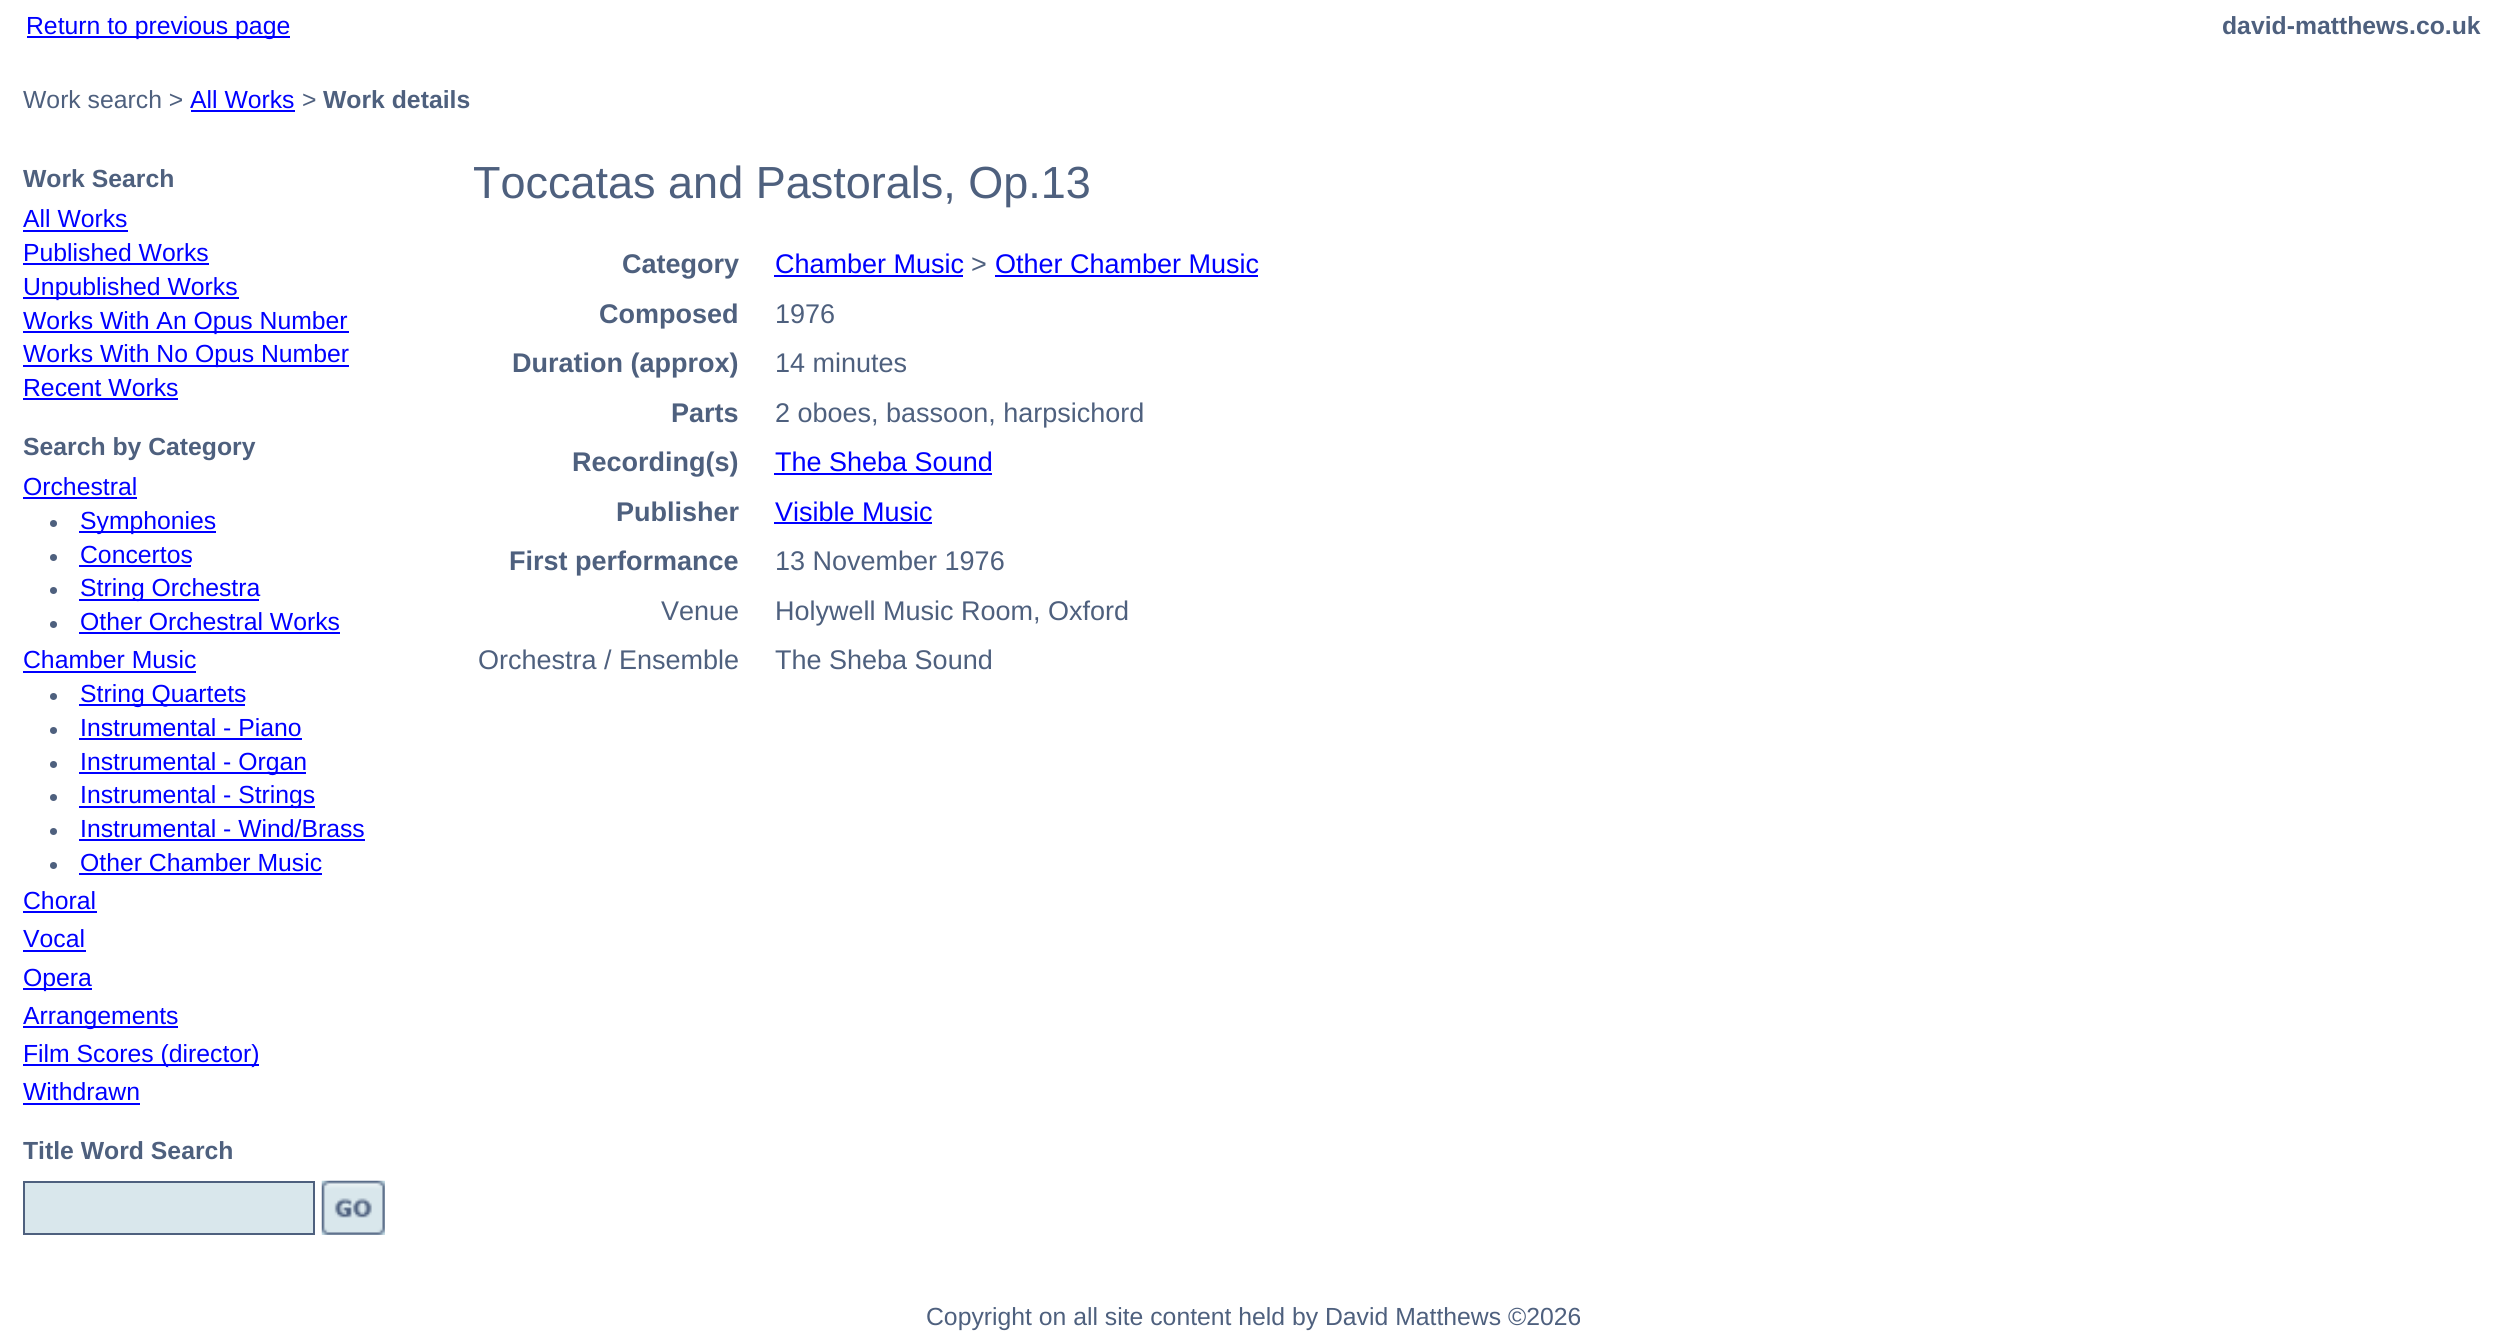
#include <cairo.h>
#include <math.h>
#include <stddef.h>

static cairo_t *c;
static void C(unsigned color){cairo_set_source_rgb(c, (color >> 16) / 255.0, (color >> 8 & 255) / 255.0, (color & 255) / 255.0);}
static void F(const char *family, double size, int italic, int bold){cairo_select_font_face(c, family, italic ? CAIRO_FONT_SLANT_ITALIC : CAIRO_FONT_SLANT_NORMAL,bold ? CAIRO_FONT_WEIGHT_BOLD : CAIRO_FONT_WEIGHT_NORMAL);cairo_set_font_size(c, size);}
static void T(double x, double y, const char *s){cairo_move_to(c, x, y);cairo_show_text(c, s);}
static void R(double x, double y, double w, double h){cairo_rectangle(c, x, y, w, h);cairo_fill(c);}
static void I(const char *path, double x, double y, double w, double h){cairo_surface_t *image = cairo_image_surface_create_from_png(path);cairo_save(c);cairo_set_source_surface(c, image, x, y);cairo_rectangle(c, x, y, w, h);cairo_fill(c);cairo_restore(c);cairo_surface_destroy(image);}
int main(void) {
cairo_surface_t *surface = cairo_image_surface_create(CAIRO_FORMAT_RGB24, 2506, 1343);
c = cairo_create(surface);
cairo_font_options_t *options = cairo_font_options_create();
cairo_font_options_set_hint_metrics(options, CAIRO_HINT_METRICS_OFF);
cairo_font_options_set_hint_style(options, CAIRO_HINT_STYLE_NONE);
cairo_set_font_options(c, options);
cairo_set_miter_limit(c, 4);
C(0xffffff);
cairo_paint(c);
C(0x0000ff);
R(27,36,263,2);
F("Liberation Sans",24.75,0,0);
T(26,34,"Return to previous page");
F("Liberation Sans",24.75,0,1);
C(0x4e607e);
T(2222,34,"david-matthews.co.uk");
F("Liberation Sans",24.75,0,0);
T(23,108,"Work search >");
C(0x0000ff);
T(190,108,"All Works");
R(191,110,104,2);
C(0x4e607e);
T(302,108,">");
F("Liberation Sans",24.75,0,1);
T(323,108,"Work details");
T(23,187,"Work Search");
F("Liberation Sans",24.75,0,0);
C(0x0000ff);
T(23,227,"All Works");
R(23,230,105,2);
T(23,261,"Published Works");
R(23,263,186,2);
R(23,297,216,2);
T(23,295,"Unpublished Works");
R(23,331,326,2);
T(23,329,"Works With An Opus Number");
R(23,365,326,2);
T(23,362,"Works With No Opus Number");
T(23,396,"Recent Works");
R(23,398,155,2);
F("Liberation Sans",24.75,0,1);
C(0x4e607e);
T(23,455,"Search by Category");
F("Liberation Sans",24.75,0,0);
C(0x0000ff);
T(23,495,"Orchestral");
R(23,497,114,2);
C(0x4e607e);
cairo_new_path(c);
cairo_arc(c,53.5,523.5,3.5,0,2 * M_PI);
cairo_fill(c);
C(0x0000ff);
R(79,531,137,2);
T(80,529,"Symphonies");
C(0x4e607e);
cairo_new_path(c);
cairo_arc(c,53.5,557.5,3.5,0,2 * M_PI);
cairo_fill(c);
C(0x0000ff);
T(80,563,"Concertos");
R(79,565,112,2);
C(0x4e607e);
cairo_new_path(c);
cairo_arc(c,53.5,590.5,3.5,0,2 * M_PI);
cairo_fill(c);
C(0x0000ff);
R(79,599,180,2);
T(80,596,"String Orchestra");
C(0x4e607e);
cairo_new_path(c);
cairo_arc(c,53.5,624.5,3.5,0,2 * M_PI);
cairo_fill(c);
C(0x0000ff);
T(80,630,"Other Orchestral Works");
R(79,632,261,2);
T(23,668,"Chamber Music");
R(23,671,173,2);
C(0x4e607e);
cairo_new_path(c);
cairo_arc(c,53.5,696.5,3.5,0,2 * M_PI);
cairo_fill(c);
C(0x0000ff);
R(79,704,166,2);
T(80,702,"String Quartets");
C(0x4e607e);
cairo_new_path(c);
cairo_arc(c,53.5,730.5,3.5,0,2 * M_PI);
cairo_fill(c);
C(0x0000ff);
T(80,736,"Instrumental - Piano");
R(79,738,223,2);
C(0x4e607e);
cairo_new_path(c);
cairo_arc(c,53.5,764.5,3.5,0,2 * M_PI);
cairo_fill(c);
C(0x0000ff);
R(79,772,227,2);
T(80,770,"Instrumental - Organ");
C(0x4e607e);
cairo_new_path(c);
cairo_arc(c,53.5,797.5,3.5,0,2 * M_PI);
cairo_fill(c);
C(0x0000ff);
R(79,806,236,2);
T(80,803,"Instrumental - Strings");
C(0x4e607e);
cairo_new_path(c);
cairo_arc(c,53.5,831.5,3.5,0,2 * M_PI);
cairo_fill(c);
C(0x0000ff);
T(80,837,"Instrumental - Wind/Brass");
R(79,839,286,2);
C(0x4e607e);
cairo_new_path(c);
cairo_arc(c,53.5,865.5,3.5,0,2 * M_PI);
cairo_fill(c);
C(0x0000ff);
T(80,871,"Other Chamber Music");
R(79,873,243,2);
T(23,909,"Choral");
R(23,911,74,2);
T(23,947,"Vocal");
R(23,950,63,2);
R(23,988,69,2);
T(23,986,"Opera");
R(23,1026,155,2);
T(23,1024,"Arrangements");
R(23,1064,236,2);
T(23,1062,"Film Scores (director)");
T(23,1100,"Withdrawn");
R(23,1103,117,2);
F("Liberation Sans",24.75,0,1);
C(0x4e607e);
T(23,1159,"Title Word Search");
C(0xd9e7ec);
cairo_rectangle(c,24,1182,290,52);
cairo_fill_preserve(c);
C(0x4e607e);
cairo_stroke(c);
C(0xd9e7ec);
R(322,1181,63,54);
I("1.png",321,1180,64,55);
F("Liberation Sans",45,0,0);
C(0x4e607e);
T(473,198,"Toccatas and Pastorals, Op.13");
F("Liberation Sans",27,0,1);
T(622,273,"Category");
F("Liberation Sans",27,0,0);
C(0x0000ff);
T(775,273,"Chamber Music");
R(774,275,189,2);
C(0x4e607e);
T(971,273,">");
C(0x0000ff);
T(995,273,"Other Chamber Music");
R(995,275,263,2);
F("Liberation Sans",27,0,1);
C(0x4e607e);
T(599,323,"Composed");
F("Liberation Sans",27,0,0);
T(775,323,"1976");
F("Liberation Sans",27,0,1);
T(512,372,"Duration (approx)");
F("Liberation Sans",27,0,0);
T(775,372,"14 minutes");
F("Liberation Sans",27,0,1);
T(671,422,"Parts");
F("Liberation Sans",27,0,0);
T(775,422,"2 oboes, bassoon, harpsichord");
F("Liberation Sans",27,0,1);
T(572,471,"Recording(s)");
F("Liberation Sans",27,0,0);
C(0x0000ff);
T(775,471,"The Sheba Sound");
R(774,473,218,2);
F("Liberation Sans",27,0,1);
C(0x4e607e);
T(616,521,"Publisher");
F("Liberation Sans",27,0,0);
C(0x0000ff);
T(775,521,"Visible Music");
R(774,522,158,2);
F("Liberation Sans",27,0,1);
C(0x4e607e);
T(509,570,"First performance");
F("Liberation Sans",27,0,0);
T(775,570,"13 November 1976");
T(661,620,"Venue");
T(775,620,"Holywell Music Room, Oxford");
T(478,669,"Orchestra / Ensemble");
T(775,669,"The Sheba Sound");
F("Liberation Sans",24.75,0,0);
T(926,1325,"Copyright on all site content held by David Matthews ©2026");
cairo_surface_write_to_png(surface, "o.png");
cairo_font_options_destroy(options);
cairo_destroy(c);
cairo_surface_destroy(surface);
return 0;
}
